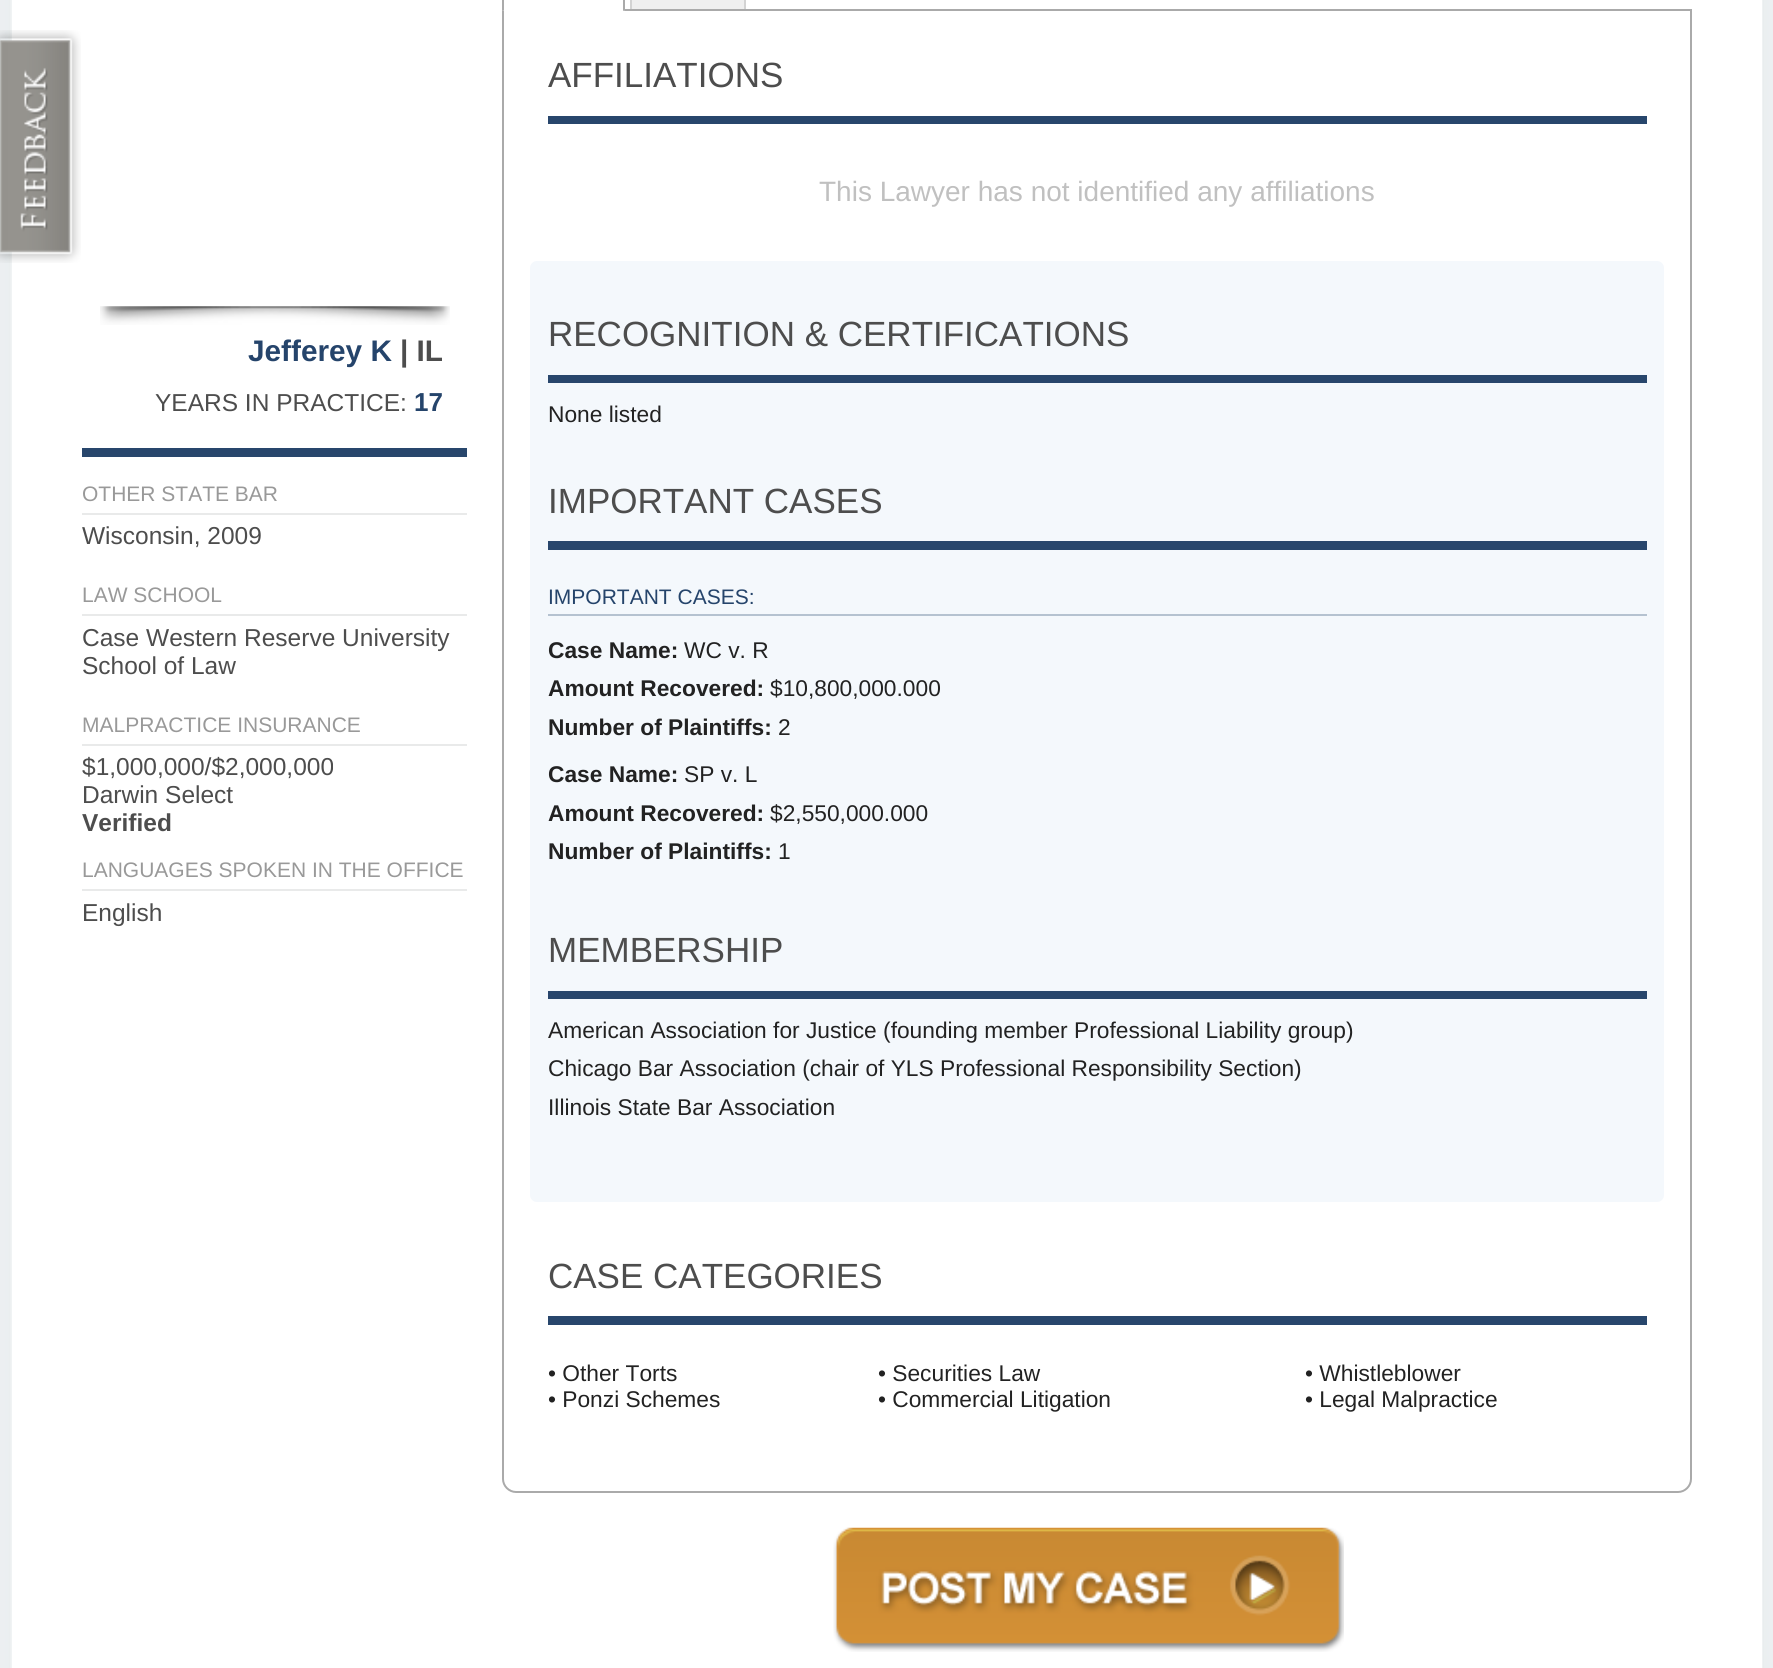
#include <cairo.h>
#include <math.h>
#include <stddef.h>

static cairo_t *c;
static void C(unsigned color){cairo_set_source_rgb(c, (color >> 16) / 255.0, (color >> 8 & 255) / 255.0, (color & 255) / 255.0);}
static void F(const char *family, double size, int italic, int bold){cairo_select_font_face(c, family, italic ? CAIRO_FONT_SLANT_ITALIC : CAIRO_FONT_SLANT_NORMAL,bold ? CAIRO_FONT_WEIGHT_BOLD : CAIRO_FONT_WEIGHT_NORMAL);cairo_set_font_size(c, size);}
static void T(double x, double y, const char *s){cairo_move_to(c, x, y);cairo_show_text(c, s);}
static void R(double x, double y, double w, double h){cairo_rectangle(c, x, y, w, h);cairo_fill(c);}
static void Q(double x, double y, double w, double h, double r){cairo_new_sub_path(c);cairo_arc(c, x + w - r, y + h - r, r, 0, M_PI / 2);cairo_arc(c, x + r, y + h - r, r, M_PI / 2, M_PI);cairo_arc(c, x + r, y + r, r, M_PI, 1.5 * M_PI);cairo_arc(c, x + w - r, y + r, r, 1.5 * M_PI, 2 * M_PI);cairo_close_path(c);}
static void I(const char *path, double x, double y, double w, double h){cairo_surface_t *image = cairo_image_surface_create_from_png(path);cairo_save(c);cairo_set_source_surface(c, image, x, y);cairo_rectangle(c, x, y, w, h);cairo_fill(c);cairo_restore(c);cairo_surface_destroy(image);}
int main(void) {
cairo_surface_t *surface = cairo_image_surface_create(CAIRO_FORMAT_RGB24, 1773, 1668);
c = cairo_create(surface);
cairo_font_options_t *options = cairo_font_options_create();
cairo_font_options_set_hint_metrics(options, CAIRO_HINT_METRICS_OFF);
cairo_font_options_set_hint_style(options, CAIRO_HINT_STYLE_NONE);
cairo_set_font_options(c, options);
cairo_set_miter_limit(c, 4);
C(0xffffff);
cairo_paint(c);
I("1.png",0,0,1773,1668);
C(0xffffff);
R(12,0,1750,1668);
I("2.png",0,30,81,233);
I("3.png",100,306,350,19);
F("Liberation Sans",29.75,0,1);
C(0x25446b);
T(248,361,"Jefferey K");
C(0x4d4d4d);
T(400,361,"| IL");
C(0x28466c);
R(82,448,385,9);
F("Liberation Sans",24.5,0,0);
C(0x4d4d4d);
T(155,411,"YEARS IN PRACTICE:");
F("Liberation Sans",26,0,1);
C(0x25446b);
T(414,411,"17");
C(0xe9eaea);
R(82,513,385,2);
F("Liberation Sans",21,0,0);
C(0x999999);
T(82,501,"OTHER STATE BAR");
F("Liberation Sans",24.5,0,0);
C(0x4d4d4d);
T(82,544,"Wisconsin, 2009");
C(0xe9eaea);
R(82,614,385,2);
F("Liberation Sans",21,0,0);
C(0x999999);
T(82,602,"LAW SCHOOL");
F("Liberation Sans",24.5,0,0);
C(0x4d4d4d);
T(82,646,"Case Western Reserve University");
T(82,674,"School of Law");
C(0xe9eaea);
R(82,744,385,2);
F("Liberation Sans",21,0,0);
C(0x999999);
T(82,732,"MALPRACTICE INSURANCE");
F("Liberation Sans",24.5,0,0);
C(0x4d4d4d);
T(82,775,"$1,000,000/$2,000,000");
T(82,803,"Darwin Select");
F("Liberation Sans",24.5,0,1);
T(82,831,"Verified");
C(0xe9eaea);
R(82,889,385,2);
F("Liberation Sans",21,0,0);
C(0x999999);
T(82,877,"LANGUAGES SPOKEN IN THE OFFICE");
F("Liberation Sans",24.5,0,0);
C(0x4d4d4d);
T(82,921,"English");
cairo_new_path(c);
cairo_move_to(c,503,10);
cairo_line_to(c,1691,10);
cairo_line_to(c,1691,1479);
cairo_curve_to(c,1691,1486,1685,1492,1678,1492);
cairo_line_to(c,516,1492);
cairo_curve_to(c,509,1492,503,1486,503,1479);
cairo_close_path(c);
C(0xaaaaaa);
cairo_stroke(c);
C(0xffffff);
R(504,9,119,2);
I("4.png",502,9,123,2);
C(0xaaaaaa);
cairo_set_fill_rule(c,CAIRO_FILL_RULE_EVEN_ODD);
cairo_new_path(c);
cairo_move_to(c,509,-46);
cairo_line_to(c,618,-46);
cairo_curve_to(c,622,-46,625,-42,625,-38);
cairo_line_to(c,625,10);
cairo_line_to(c,502,10);
cairo_line_to(c,502,-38);
cairo_curve_to(c,502,-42,505,-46,509,-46);
cairo_close_path(c);
cairo_move_to(c,509,-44);
cairo_line_to(c,618,-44);
cairo_curve_to(c,621,-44,623,-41,623,-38);
cairo_line_to(c,623,10);
cairo_line_to(c,504,10);
cairo_line_to(c,504,-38);
cairo_curve_to(c,504,-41,506,-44,509,-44);
cairo_close_path(c);
cairo_fill(c);
C(0xefefef);
R(632,0,112,9);
C(0xd3d3d3);
cairo_new_path(c);
cairo_move_to(c,637,-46);
cairo_line_to(c,738,-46);
cairo_curve_to(c,742,-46,746,-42,746,-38);
cairo_line_to(c,746,9);
cairo_line_to(c,630,9);
cairo_line_to(c,630,-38);
cairo_curve_to(c,630,-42,633,-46,637,-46);
cairo_close_path(c);
cairo_move_to(c,637,-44);
cairo_line_to(c,738,-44);
cairo_curve_to(c,741,-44,744,-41,744,-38);
cairo_line_to(c,744,9);
cairo_line_to(c,632,9);
cairo_line_to(c,632,-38);
cairo_curve_to(c,632,-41,634,-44,637,-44);
cairo_close_path(c);
cairo_fill(c);
C(0x28466c);
R(548,116,1099,8);
F("Liberation Sans",35,0,0);
C(0x4d4d4d);
T(548,87,"AFFILIATIONS");
F("Liberation Sans",28,0,0);
C(0xc0c0c0);
T(819,201,"This Lawyer has not identified any affiliations");
C(0xf4f8fc);
Q(530,261,1134,941,7);
cairo_fill(c);
C(0x28466c);
R(548,375,1099,8);
F("Liberation Sans",35,0,0);
C(0x4d4d4d);
T(548,346,"RECOGNITION & CERTIFICATIONS");
F("Liberation Sans",22.75,0,0);
C(0x222222);
T(548,422,"None listed");
C(0x28466c);
R(548,541,1099,9);
F("Liberation Sans",35,0,0);
C(0x4d4d4d);
T(548,513,"IMPORTANT CASES");
C(0xb5c2d0);
R(548,614,1099,2);
F("Liberation Sans",21,0,0);
C(0x25446b);
T(548,604,"IMPORTANT CASES:");
F("Liberation Sans",22.75,0,1);
C(0x222222);
T(548,658,"Case Name:");
F("Liberation Sans",22.75,0,0);
T(684,658,"WC v. R");
F("Liberation Sans",22.75,0,1);
T(548,696,"Amount Recovered:");
F("Liberation Sans",22.75,0,0);
T(770,696,"$10,800,000.000");
F("Liberation Sans",22.75,0,1);
T(548,735,"Number of Plaintiffs:");
F("Liberation Sans",22.75,0,0);
T(778,735,"2");
F("Liberation Sans",22.75,0,1);
T(548,782,"Case Name:");
F("Liberation Sans",22.75,0,0);
T(684,782,"SP v. L");
F("Liberation Sans",22.75,0,1);
T(548,821,"Amount Recovered:");
F("Liberation Sans",22.75,0,0);
T(770,821,"$2,550,000.000");
F("Liberation Sans",22.75,0,1);
T(548,859,"Number of Plaintiffs:");
F("Liberation Sans",22.75,0,0);
T(778,859,"1");
C(0x28466c);
R(548,991,1099,8);
F("Liberation Sans",35,0,0);
C(0x4d4d4d);
T(548,962,"MEMBERSHIP");
F("Liberation Sans",22.75,0,0);
C(0x222222);
T(548,1038,"American Association for Justice (founding member Professional Liability group)");
T(548,1076,"Chicago Bar Association (chair of YLS Professional Responsibility Section)");
T(548,1115,"Illinois State Bar Association");
C(0x28466c);
R(548,1316,1099,9);
F("Liberation Sans",35,0,0);
C(0x4d4d4d);
T(548,1288,"CASE CATEGORIES");
F("Liberation Sans",22.75,0,0);
C(0x222222);
T(548,1381,"• Other Torts");
T(878,1381,"• Securities Law");
T(1305,1381,"• Whistleblower");
T(548,1407,"• Ponzi Schemes");
T(878,1407,"• Commercial Litigation");
T(1305,1407,"• Legal Malpractice");
I("5.png",833,1527,511,125);
cairo_surface_write_to_png(surface, "o.png");
cairo_font_options_destroy(options);
cairo_destroy(c);
cairo_surface_destroy(surface);
return 0;
}
